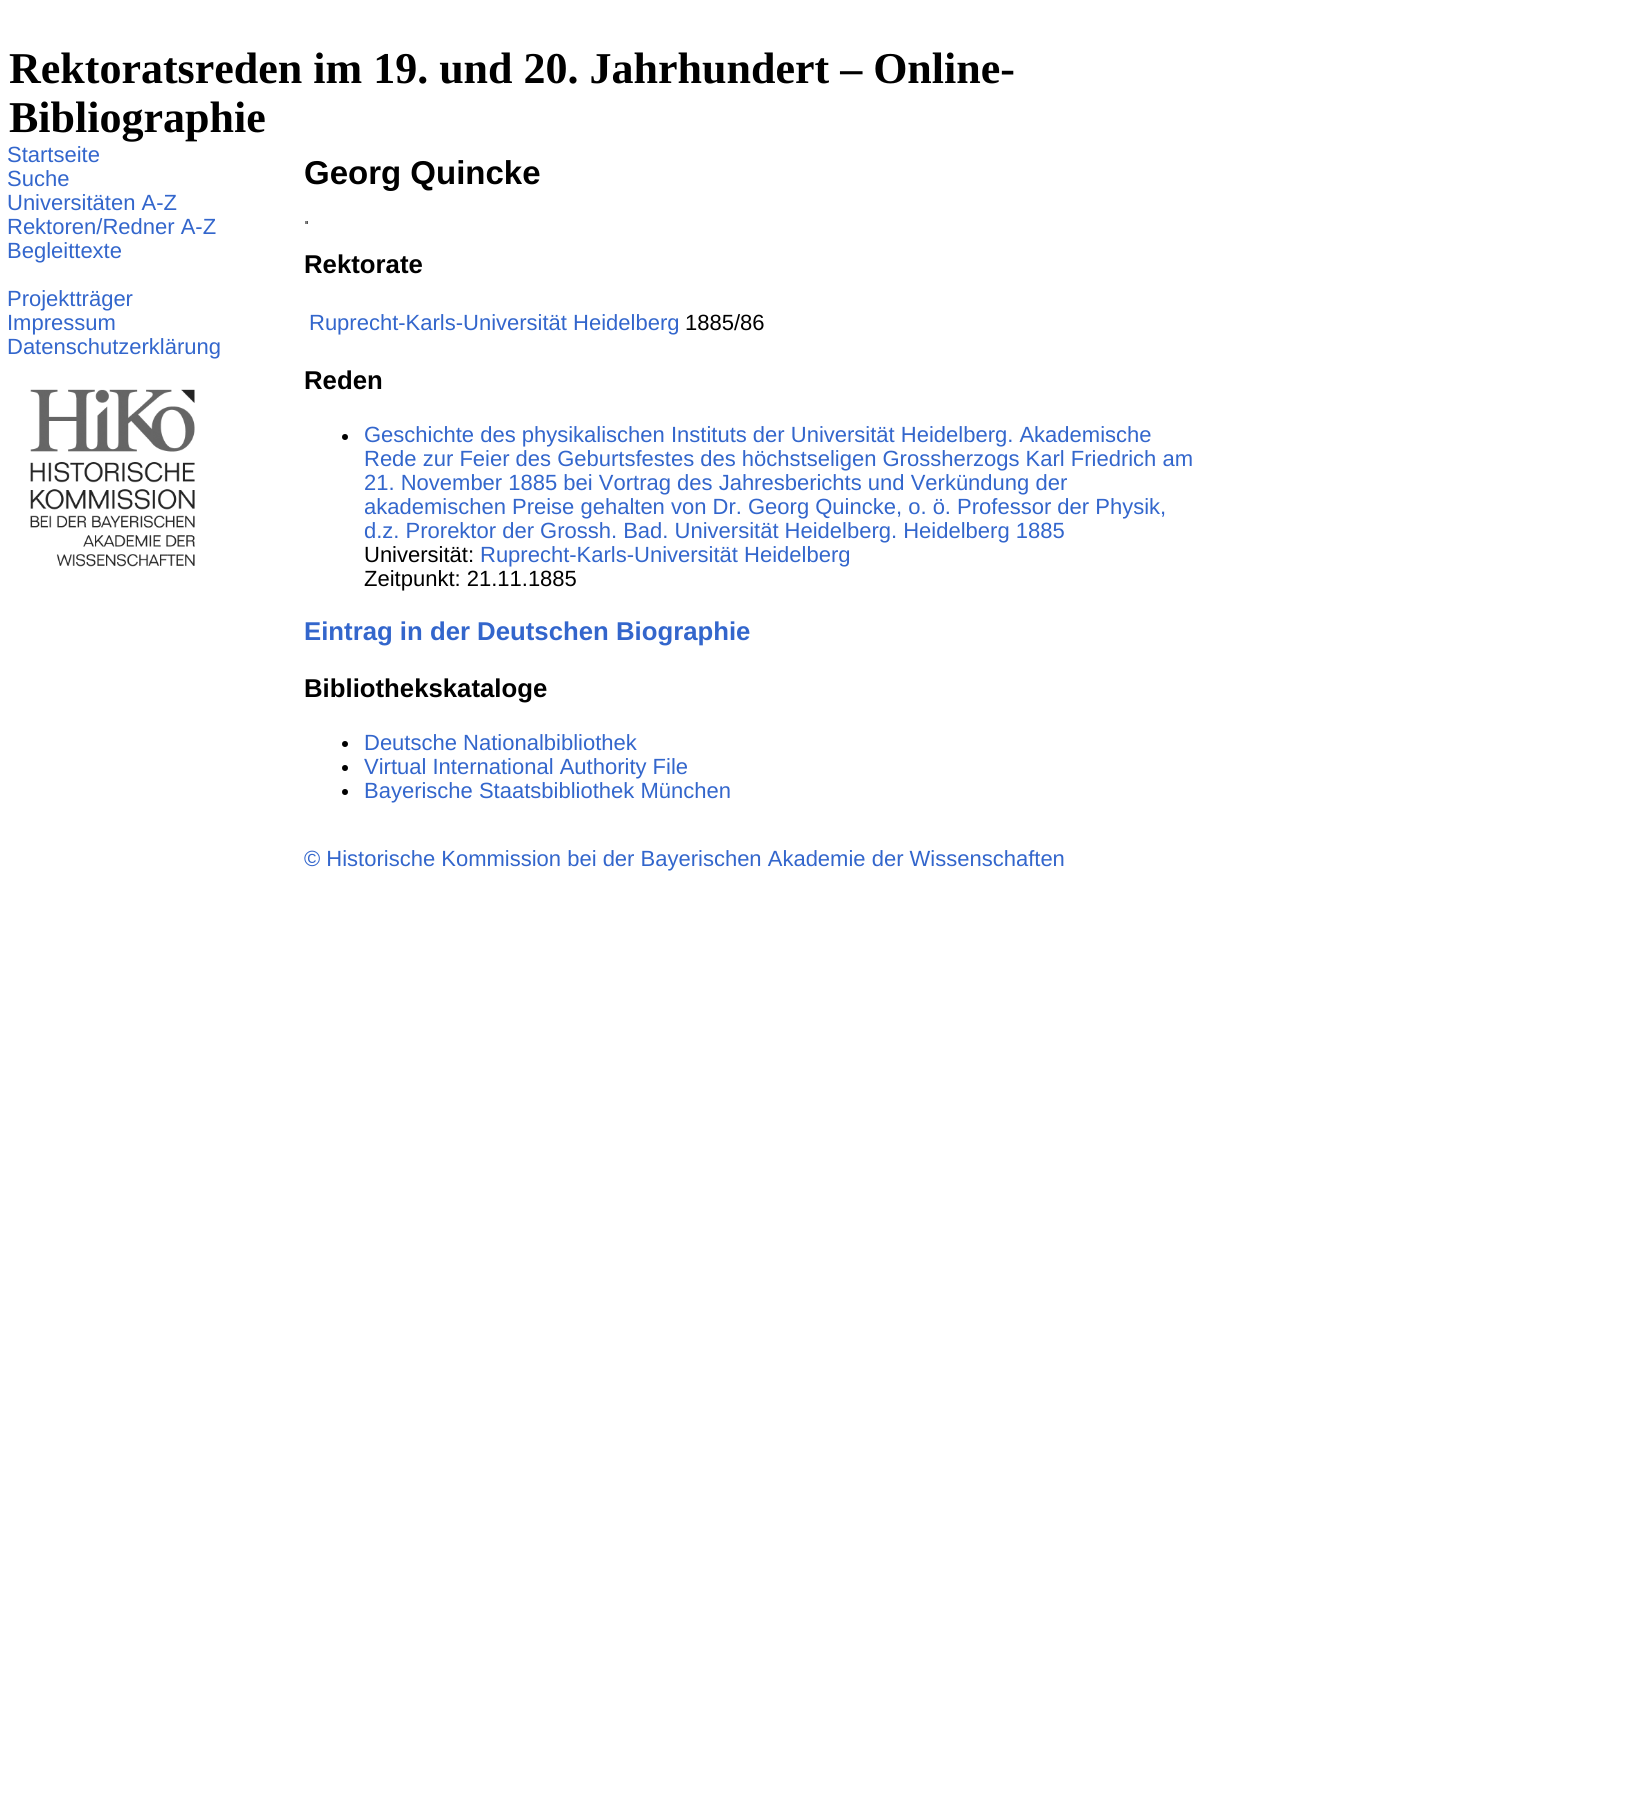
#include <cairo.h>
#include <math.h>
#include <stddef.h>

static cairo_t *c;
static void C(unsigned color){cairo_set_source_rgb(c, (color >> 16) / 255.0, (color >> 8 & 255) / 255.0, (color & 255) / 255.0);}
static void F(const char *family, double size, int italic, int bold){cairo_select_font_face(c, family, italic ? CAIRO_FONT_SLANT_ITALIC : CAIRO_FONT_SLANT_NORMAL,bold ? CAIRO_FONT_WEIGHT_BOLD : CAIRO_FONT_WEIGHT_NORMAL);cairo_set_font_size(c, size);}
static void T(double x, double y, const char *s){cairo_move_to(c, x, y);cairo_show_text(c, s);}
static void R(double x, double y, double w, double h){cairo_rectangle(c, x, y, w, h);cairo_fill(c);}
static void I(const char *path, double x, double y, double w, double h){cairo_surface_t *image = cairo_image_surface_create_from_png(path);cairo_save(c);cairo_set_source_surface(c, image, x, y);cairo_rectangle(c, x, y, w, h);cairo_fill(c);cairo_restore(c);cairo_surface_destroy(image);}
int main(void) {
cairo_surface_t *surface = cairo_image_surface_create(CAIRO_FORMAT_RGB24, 1632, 1812);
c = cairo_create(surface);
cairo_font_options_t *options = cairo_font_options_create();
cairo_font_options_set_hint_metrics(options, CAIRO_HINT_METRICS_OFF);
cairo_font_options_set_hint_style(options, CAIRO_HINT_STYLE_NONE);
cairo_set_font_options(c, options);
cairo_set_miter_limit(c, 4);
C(0xffffff);
cairo_paint(c);
F("Liberation Serif",44,0,1);
C(0x000000);
T(9,83,"Rektoratsreden im 19. und 20. Jahrhundert – Online-");
T(9,132,"Bibliographie");
F("Liberation Sans",22,0,0);
C(0x3366cc);
T(7,162,"Startseite");
T(7,186,"Suche");
T(7,210,"Universitäten A-Z");
T(7,234,"Rektoren/Redner A-Z");
T(7,258,"Begleittexte");
T(7,306,"Projektträger");
T(7,330,"Impressum");
T(7,354,"Datenschutzerklärung");
I("1.png",30,389,165,178);
F("Liberation Sans",33,0,1);
C(0x000000);
T(304,184,"Georg Quincke");
C(0x555555);
R(307,221,1,3);
R(305,222,3,2);
C(0x808080);
R(305,221,2,3);
F("Liberation Sans",25.75,0,1);
C(0x000000);
T(304,273,"Rektorate");
F("Liberation Sans",22,0,0);
C(0x3366cc);
T(309,330,"Ruprecht-Karls-Universität Heidelberg");
C(0x000000);
T(685,330,"1885/86");
F("Liberation Sans",25.75,0,1);
T(304,389,"Reden");
cairo_new_path(c);
cairo_arc(c,345,437,3,0,2 * M_PI);
cairo_fill(c);
F("Liberation Sans",22,0,0);
C(0x3366cc);
T(364,442,"Geschichte des physikalischen Instituts der Universität Heidelberg. Akademische");
T(364,466,"Rede zur Feier des Geburtsfestes des höchstseligen Grossherzogs Karl Friedrich am");
T(364,490,"21. November 1885 bei Vortrag des Jahresberichts und Verkündung der");
T(364,514,"akademischen Preise gehalten von Dr. Georg Quincke, o. ö. Professor der Physik,");
T(364,538,"d.z. Prorektor der Grossh. Bad. Universität Heidelberg. Heidelberg 1885");
C(0x000000);
T(364,562,"Universität:");
C(0x3366cc);
T(480,562,"Ruprecht-Karls-Universität Heidelberg");
C(0x000000);
T(364,586,"Zeitpunkt: 21.11.1885");
F("Liberation Sans",25.75,0,1);
C(0x3366cc);
T(304,640,"Eintrag in der Deutschen Biographie");
C(0x000000);
T(304,697,"Bibliothekskataloge");
cairo_new_path(c);
cairo_arc(c,345,744,3,0,2 * M_PI);
cairo_fill(c);
F("Liberation Sans",22,0,0);
C(0x3366cc);
T(364,750,"Deutsche Nationalbibliothek");
C(0x000000);
cairo_new_path(c);
cairo_arc(c,345,768,3,0,2 * M_PI);
cairo_fill(c);
C(0x3366cc);
T(364,774,"Virtual International Authority File");
C(0x000000);
cairo_new_path(c);
cairo_arc(c,345,792,3,0,2 * M_PI);
cairo_fill(c);
C(0x3366cc);
T(364,798,"Bayerische Staatsbibliothek München");
T(304,866,"© Historische Kommission bei der Bayerischen Akademie der Wissenschaften");
cairo_surface_write_to_png(surface, "o.png");
cairo_font_options_destroy(options);
cairo_destroy(c);
cairo_surface_destroy(surface);
return 0;
}
